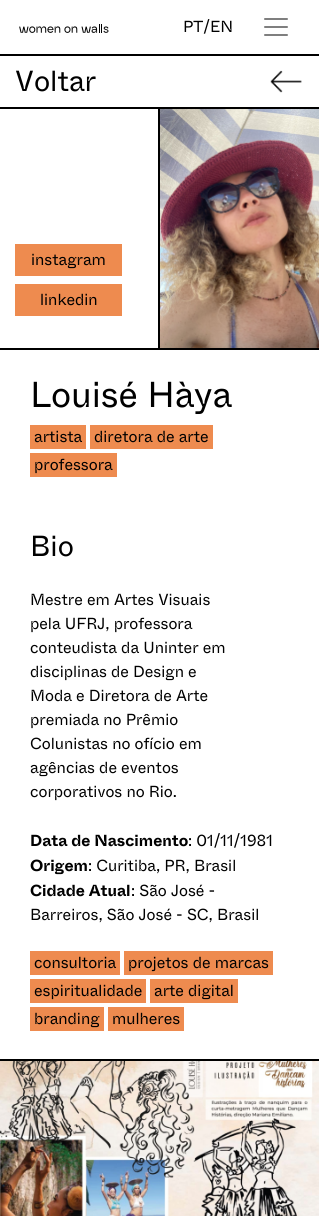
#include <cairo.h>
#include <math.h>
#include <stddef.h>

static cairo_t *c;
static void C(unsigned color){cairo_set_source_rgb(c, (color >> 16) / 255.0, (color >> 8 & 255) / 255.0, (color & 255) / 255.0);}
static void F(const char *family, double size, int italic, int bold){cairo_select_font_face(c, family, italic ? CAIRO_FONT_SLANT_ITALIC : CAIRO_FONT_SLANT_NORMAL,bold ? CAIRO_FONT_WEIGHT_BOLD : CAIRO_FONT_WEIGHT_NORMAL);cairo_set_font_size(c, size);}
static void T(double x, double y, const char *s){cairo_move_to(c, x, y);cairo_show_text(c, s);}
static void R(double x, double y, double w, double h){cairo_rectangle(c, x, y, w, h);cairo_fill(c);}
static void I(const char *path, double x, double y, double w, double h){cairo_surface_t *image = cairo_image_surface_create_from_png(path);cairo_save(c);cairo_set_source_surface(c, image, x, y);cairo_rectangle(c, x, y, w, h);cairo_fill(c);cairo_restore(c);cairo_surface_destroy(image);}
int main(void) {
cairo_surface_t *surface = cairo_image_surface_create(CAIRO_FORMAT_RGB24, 319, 1216);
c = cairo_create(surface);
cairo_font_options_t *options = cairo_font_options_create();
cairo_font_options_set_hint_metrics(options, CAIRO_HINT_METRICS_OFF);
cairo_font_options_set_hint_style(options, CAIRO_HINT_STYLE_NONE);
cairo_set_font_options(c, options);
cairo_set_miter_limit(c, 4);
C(0xffffff);
cairo_paint(c);
I("1.png",19,24,90,9);
F("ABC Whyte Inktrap",16,0,0);
C(0x000000);
T(183,32,"PT/EN");
I("2.png",264,18,24,18);
R(0,54,319,2);
R(0,107,319,2);
I("3.png",270,70,32,23);
F("ABC Whyte Inktrap",29,0,0);
T(15,91,"Voltar");
R(158,109,2,241);
R(0,348,319,2);
C(0xee8b4f);
R(15,244,107,32);
F("ABC Whyte Inktrap",16,0,0);
C(0x000000);
T(31,265,"instagram");
C(0xee8b4f);
R(15,284,107,32);
C(0x000000);
T(40,305,"linkedin");
I("4.png",160,109,159,239);
F("ABC Whyte Inktrap",36,0,0);
T(30,407,"Louisé Hàya");
C(0xee8b4f);
R(30,425,56,24);
F("ABC Whyte Inktrap",16,0,0);
C(0x000000);
T(34,442,"artista");
C(0xee8b4f);
R(90,425,123,24);
C(0x000000);
T(94,442,"diretora de arte");
C(0xee8b4f);
R(30,453,87,24);
C(0x000000);
T(34,470,"professora");
R(0,1059,319,2);
F("ABC Whyte Inktrap",29,0,0);
T(30,556,"Bio");
F("ABC Whyte Inktrap",16,0,0);
T(30,605,"Mestre em Artes Visuais");
T(30,629,"pela UFRJ, professora");
T(30,653,"conteudista da Uninter em");
T(30,677,"disciplinas de Design e");
T(30,701,"Moda e Diretora de Arte");
T(30,725,"premiada no Prêmio");
T(30,749,"Colunistas no ofício em");
T(30,773,"agências de eventos");
T(30,797,"corporativos no Rio.");
F("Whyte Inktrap",16,0,1);
T(30,846,"Data de Nascimento");
F("ABC Whyte Inktrap",16,0,0);
T(188,846,": 01/11/1981");
F("Whyte Inktrap",16,0,1);
T(30,871,"Origem");
F("ABC Whyte Inktrap",16,0,0);
T(88,871,": Curitiba, PR, Brasil");
F("Whyte Inktrap",16,0,1);
T(30,896,"Cidade Atual");
F("ABC Whyte Inktrap",16,0,0);
T(131,896,": São José -");
T(30,920,"Barreiros, São José - SC, Brasil");
C(0xee8b4f);
R(30,951,90,24);
C(0x000000);
T(34,968,"consultoria");
C(0xee8b4f);
R(124,951,149,24);
C(0x000000);
T(128,968,"projetos de marcas");
C(0xee8b4f);
R(30,979,116,24);
C(0x000000);
T(34,996,"espiritualidade");
C(0xee8b4f);
R(150,979,88,24);
C(0x000000);
T(154,996,"arte digital");
C(0xee8b4f);
R(30,1007,74,24);
C(0x000000);
T(34,1024,"branding");
C(0xee8b4f);
R(108,1007,76,24);
C(0x000000);
T(112,1024,"mulheres");
I("5.png",0,1061,319,155);
cairo_surface_write_to_png(surface, "o.png");
cairo_font_options_destroy(options);
cairo_destroy(c);
cairo_surface_destroy(surface);
return 0;
}
